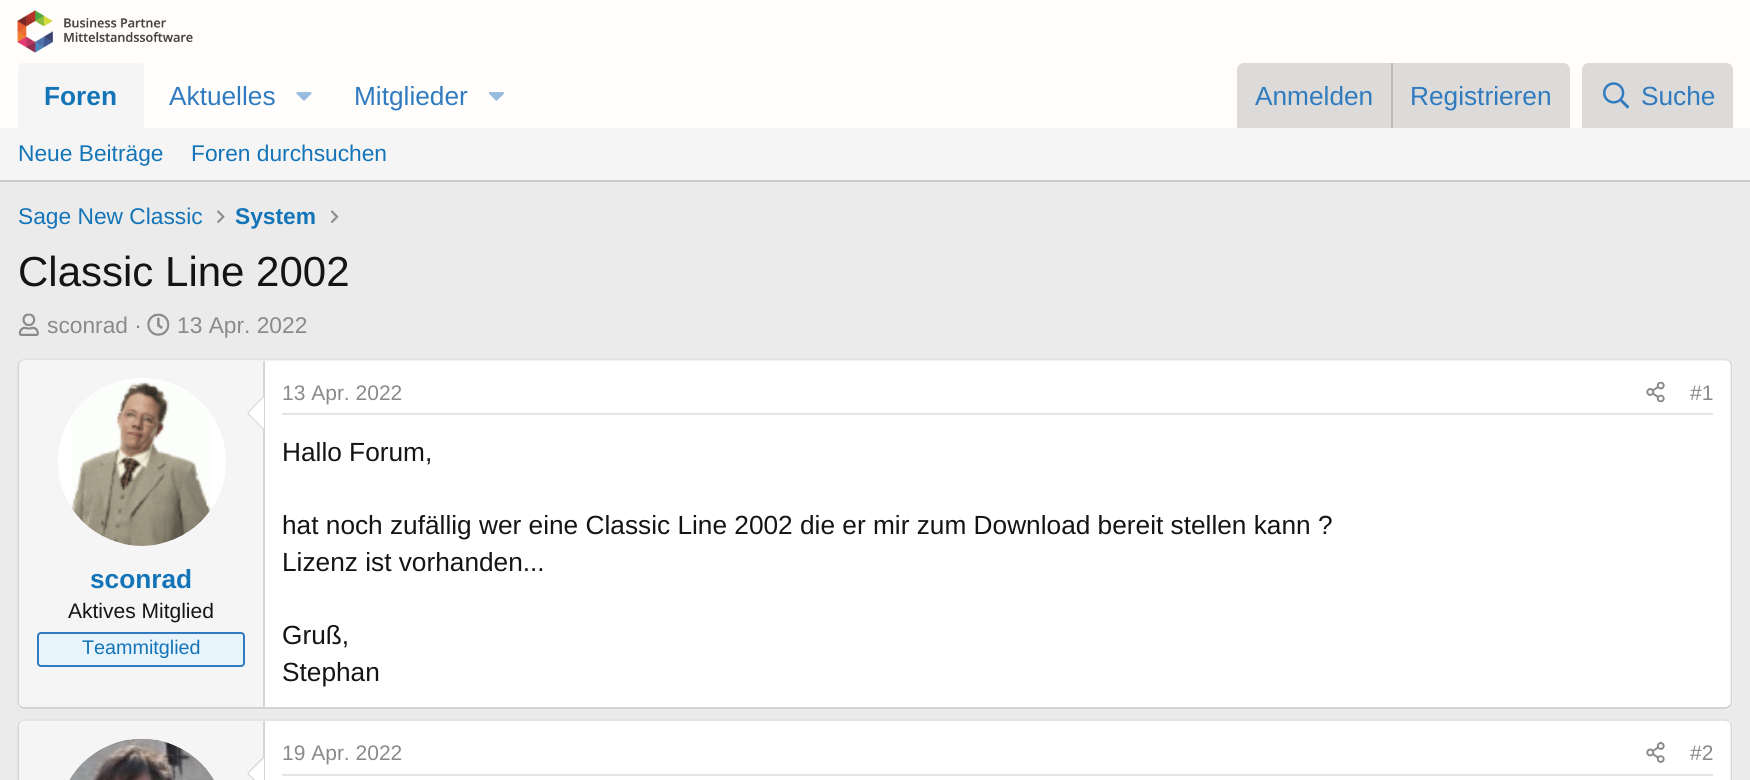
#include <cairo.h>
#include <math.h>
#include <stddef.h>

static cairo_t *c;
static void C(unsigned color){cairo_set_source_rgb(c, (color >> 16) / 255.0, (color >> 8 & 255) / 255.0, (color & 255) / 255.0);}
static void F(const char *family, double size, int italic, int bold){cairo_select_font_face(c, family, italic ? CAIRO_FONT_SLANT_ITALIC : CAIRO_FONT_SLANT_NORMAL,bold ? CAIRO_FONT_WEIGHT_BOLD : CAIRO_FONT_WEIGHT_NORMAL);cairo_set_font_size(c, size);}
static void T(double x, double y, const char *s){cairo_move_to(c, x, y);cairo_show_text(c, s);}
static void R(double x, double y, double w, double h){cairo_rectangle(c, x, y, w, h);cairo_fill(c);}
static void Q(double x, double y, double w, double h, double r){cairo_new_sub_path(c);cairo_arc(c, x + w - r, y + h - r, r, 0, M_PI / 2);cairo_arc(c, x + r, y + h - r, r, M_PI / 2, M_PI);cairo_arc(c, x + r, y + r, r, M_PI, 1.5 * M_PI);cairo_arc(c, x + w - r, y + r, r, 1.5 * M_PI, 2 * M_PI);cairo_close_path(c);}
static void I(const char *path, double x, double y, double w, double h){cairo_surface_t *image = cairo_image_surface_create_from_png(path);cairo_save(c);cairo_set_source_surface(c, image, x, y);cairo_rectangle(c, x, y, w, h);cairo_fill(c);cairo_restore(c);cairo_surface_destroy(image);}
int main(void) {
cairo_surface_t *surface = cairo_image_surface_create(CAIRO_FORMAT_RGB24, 1750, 780);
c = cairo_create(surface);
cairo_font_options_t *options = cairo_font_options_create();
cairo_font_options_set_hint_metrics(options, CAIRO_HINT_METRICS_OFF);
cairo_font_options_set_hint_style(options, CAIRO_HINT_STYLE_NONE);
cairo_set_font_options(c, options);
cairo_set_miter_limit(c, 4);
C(0xebebeb);
cairo_paint(c);
C(0xfffefd);
R(0,0,1750,128);
I("1.png",17,10,176,43);
C(0xf5f5f5);
cairo_new_path(c);
cairo_move_to(c,22,63);
cairo_line_to(c,140,63);
cairo_curve_to(c,142,63,144,65,144,67);
cairo_line_to(c,144,128);
cairo_line_to(c,18,128);
cairo_line_to(c,18,67);
cairo_curve_to(c,18,65,20,63,22,63);
cairo_close_path(c);
cairo_fill(c);
F("Liberation Sans",26.25,0,1);
C(0x1474b8);
T(44,105,"Foren");
F("Liberation Sans",26.25,0,0);
C(0x307abf);
T(169,105,"Aktuelles");
I("2.png",296,92,16,9);
T(354,105,"Mitglieder");
I("3.png",488,92,16,9);
C(0xdcdbda);
cairo_new_path(c);
cairo_move_to(c,1244,63);
cairo_line_to(c,1563,63);
cairo_curve_to(c,1567,63,1570,66,1570,70);
cairo_line_to(c,1570,128);
cairo_line_to(c,1237,128);
cairo_line_to(c,1237,70);
cairo_curve_to(c,1237,66,1240,63,1244,63);
cairo_close_path(c);
cairo_fill(c);
C(0x307abf);
T(1255,105,"Anmelden");
C(0xbebdbc);
R(1391,63,2,65);
C(0x307abf);
T(1410,105,"Registrieren");
C(0xdcdbda);
cairo_new_path(c);
cairo_move_to(c,1589,63);
cairo_line_to(c,1726,63);
cairo_curve_to(c,1730,63,1733,66,1733,70);
cairo_line_to(c,1733,128);
cairo_line_to(c,1582,128);
cairo_line_to(c,1582,70);
cairo_curve_to(c,1582,66,1585,63,1589,63);
cairo_close_path(c);
cairo_fill(c);
I("4.png",1603,82,26,27);
C(0x307abf);
T(1641,105,"Suche");
C(0xf5f5f5);
R(0,128,1750,52);
C(0xcccccc);
R(0,180,1750,2);
F("Liberation Sans",22.75,0,0);
C(0x1474b8);
T(18,161,"Neue Beiträge");
T(191,161,"Foren durchsuchen");
T(18,224,"Sage New Classic");
I("5.png",217,210,8,13);
F("Liberation Sans",22.75,0,1);
T(235,224,"System");
I("6.png",331,210,8,13);
F("Liberation Sans",42,0,0);
C(0x141414);
T(18,286,"Classic Line 2002");
I("7.png",18,313,21,23);
F("Liberation Sans",22.75,0,0);
C(0x8a8a8a);
T(47,333,"sconrad ·");
I("8.png",147,313,23,23);
T(177,333,"13 Apr. 2022");
C(0xffffff);
Q(18,359,1715,350,7);
cairo_fill(c);
cairo_new_path(c);
cairo_move_to(c,20,361.5);
cairo_curve_to(c,21.5,360.5,23,359.5,24.5,359.5);
cairo_line_to(c,1725.5,359.5);
cairo_curve_to(c,1727,359.5,1728.5,360.5,1730,361.5);
C(0xe0e0e0);
cairo_set_line_width(c,1.8);
cairo_stroke(c);
cairo_new_path(c);
cairo_move_to(c,1730,361.5);
cairo_curve_to(c,1731,362.5,1731.5,364,1731.5,366);
cairo_line_to(c,1731.5,702);
cairo_curve_to(c,1731.5,703.5,1731,705,1730,706);
C(0xd6d6d6);
cairo_stroke(c);
cairo_new_path(c);
cairo_move_to(c,1730,706);
cairo_curve_to(c,1728.5,707,1727,708,1725.5,708);
cairo_line_to(c,24.5,708);
cairo_curve_to(c,23,708,21.5,707,20,706);
C(0xcccccc);
cairo_stroke(c);
cairo_new_path(c);
cairo_move_to(c,20,706);
cairo_curve_to(c,19,705,18.5,703.5,18.5,702);
cairo_line_to(c,18.5,366);
cairo_curve_to(c,18.5,364,19,362.5,20,361.5);
C(0xd6d6d6);
cairo_stroke(c);
C(0xf5f5f5);
cairo_new_path(c);
cairo_move_to(c,24,361);
cairo_line_to(c,264,361);
cairo_line_to(c,264,707);
cairo_line_to(c,24,707);
cairo_curve_to(c,21,707,19,705,19,702);
cairo_line_to(c,19,366);
cairo_curve_to(c,19,363,21,361,24,361);
cairo_close_path(c);
cairo_fill(c);
C(0xd6d6d6);
R(263,361,2,346);
C(0xffffff);
cairo_arc(c,142,462,84,0,2 * M_PI);
cairo_fill(c);
I("9.png",71,382,140,164);
C(0xd6d6d6);
cairo_new_path(c);
cairo_move_to(c,264,395.5);
cairo_line_to(c,264,430.5);
cairo_line_to(c,247,413);
cairo_close_path(c);
cairo_fill(c);
C(0xffffff);
cairo_new_path(c);
cairo_move_to(c,264,397);
cairo_line_to(c,264,429);
cairo_line_to(c,248.5,413);
cairo_close_path(c);
cairo_fill(c);
F("Liberation Sans",26.25,0,1);
C(0x1474b8);
T(90,588,"sconrad");
F("Liberation Sans",21,0,0);
C(0x141414);
T(68,618,"Aktives Mitglied");
C(0xe8f4fc);
Q(38,633,206,33,3);
cairo_fill_preserve(c);
C(0x307abf);
cairo_set_line_width(c,2);
cairo_stroke(c);
F("Liberation Sans",19.75,0,0);
C(0x1474b8);
T(82,654,"Teammitglied");
C(0xe5e5e5);
R(282,413,1431,2);
F("Liberation Sans",21,0,0);
C(0x8a8a8a);
T(282,400,"13 Apr. 2022");
I("10.png",1646,381,19,22);
T(1690,400,"#1");
F("Liberation Sans",26.25,0,0);
C(0x141414);
T(282,461,"Hallo Forum,");
T(282,534,"hat noch zufällig wer eine Classic Line 2002 die er mir zum Download bereit stellen kann ?");
T(282,571,"Lizenz ist vorhanden...");
T(282,644,"Gruß,");
T(282,681,"Stephan");
C(0xffffff);
Q(18,719,1715,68,7);
cairo_fill(c);
cairo_new_path(c);
cairo_move_to(c,20,722);
cairo_curve_to(c,21.5,721,23,720,24.5,720);
cairo_line_to(c,1725.5,720);
cairo_curve_to(c,1727,720,1728.5,721,1730,722);
C(0xe0e0e0);
cairo_set_line_width(c,1.8);
cairo_stroke(c);
cairo_new_path(c);
cairo_move_to(c,1730,722);
cairo_curve_to(c,1731,723,1731.5,724.5,1731.5,726);
cairo_line_to(c,1731.5,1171);
cairo_curve_to(c,1731.5,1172.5,1731,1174,1730,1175);
C(0xd6d6d6);
cairo_stroke(c);
cairo_new_path(c);
cairo_move_to(c,20,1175);
cairo_curve_to(c,19,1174,18.5,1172.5,18.5,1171);
cairo_line_to(c,18.5,726);
cairo_curve_to(c,18.5,724.5,19,723,20,722);
cairo_stroke(c);
C(0xf5f5f5);
cairo_new_path(c);
cairo_move_to(c,24,721);
cairo_line_to(c,264,721);
cairo_line_to(c,264,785);
cairo_line_to(c,24,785);
cairo_curve_to(c,21,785,19,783,19,780);
cairo_line_to(c,19,726);
cairo_curve_to(c,19,723,21,721,24,721);
cairo_close_path(c);
cairo_fill(c);
C(0xd6d6d6);
R(263,721,2,59);
C(0xffffff);
Q(58,739,168,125,84);
cairo_fill(c);
I("11.png",69,738,145,42);
C(0xd6d6d6);
cairo_new_path(c);
cairo_move_to(c,264,756);
cairo_line_to(c,264,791);
cairo_line_to(c,247,773.5);
cairo_close_path(c);
cairo_fill(c);
C(0xffffff);
cairo_new_path(c);
cairo_move_to(c,264,758);
cairo_line_to(c,264,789);
cairo_line_to(c,248.5,773.5);
cairo_close_path(c);
cairo_fill(c);
C(0xe5e5e5);
R(282,774,1431,2);
F("Liberation Sans",21,0,0);
C(0x8a8a8a);
T(282,760,"19 Apr. 2022");
I("12.png",1646,742,19,21);
T(1690,760,"#2");
cairo_surface_write_to_png(surface, "o.png");
cairo_font_options_destroy(options);
cairo_destroy(c);
cairo_surface_destroy(surface);
return 0;
}
